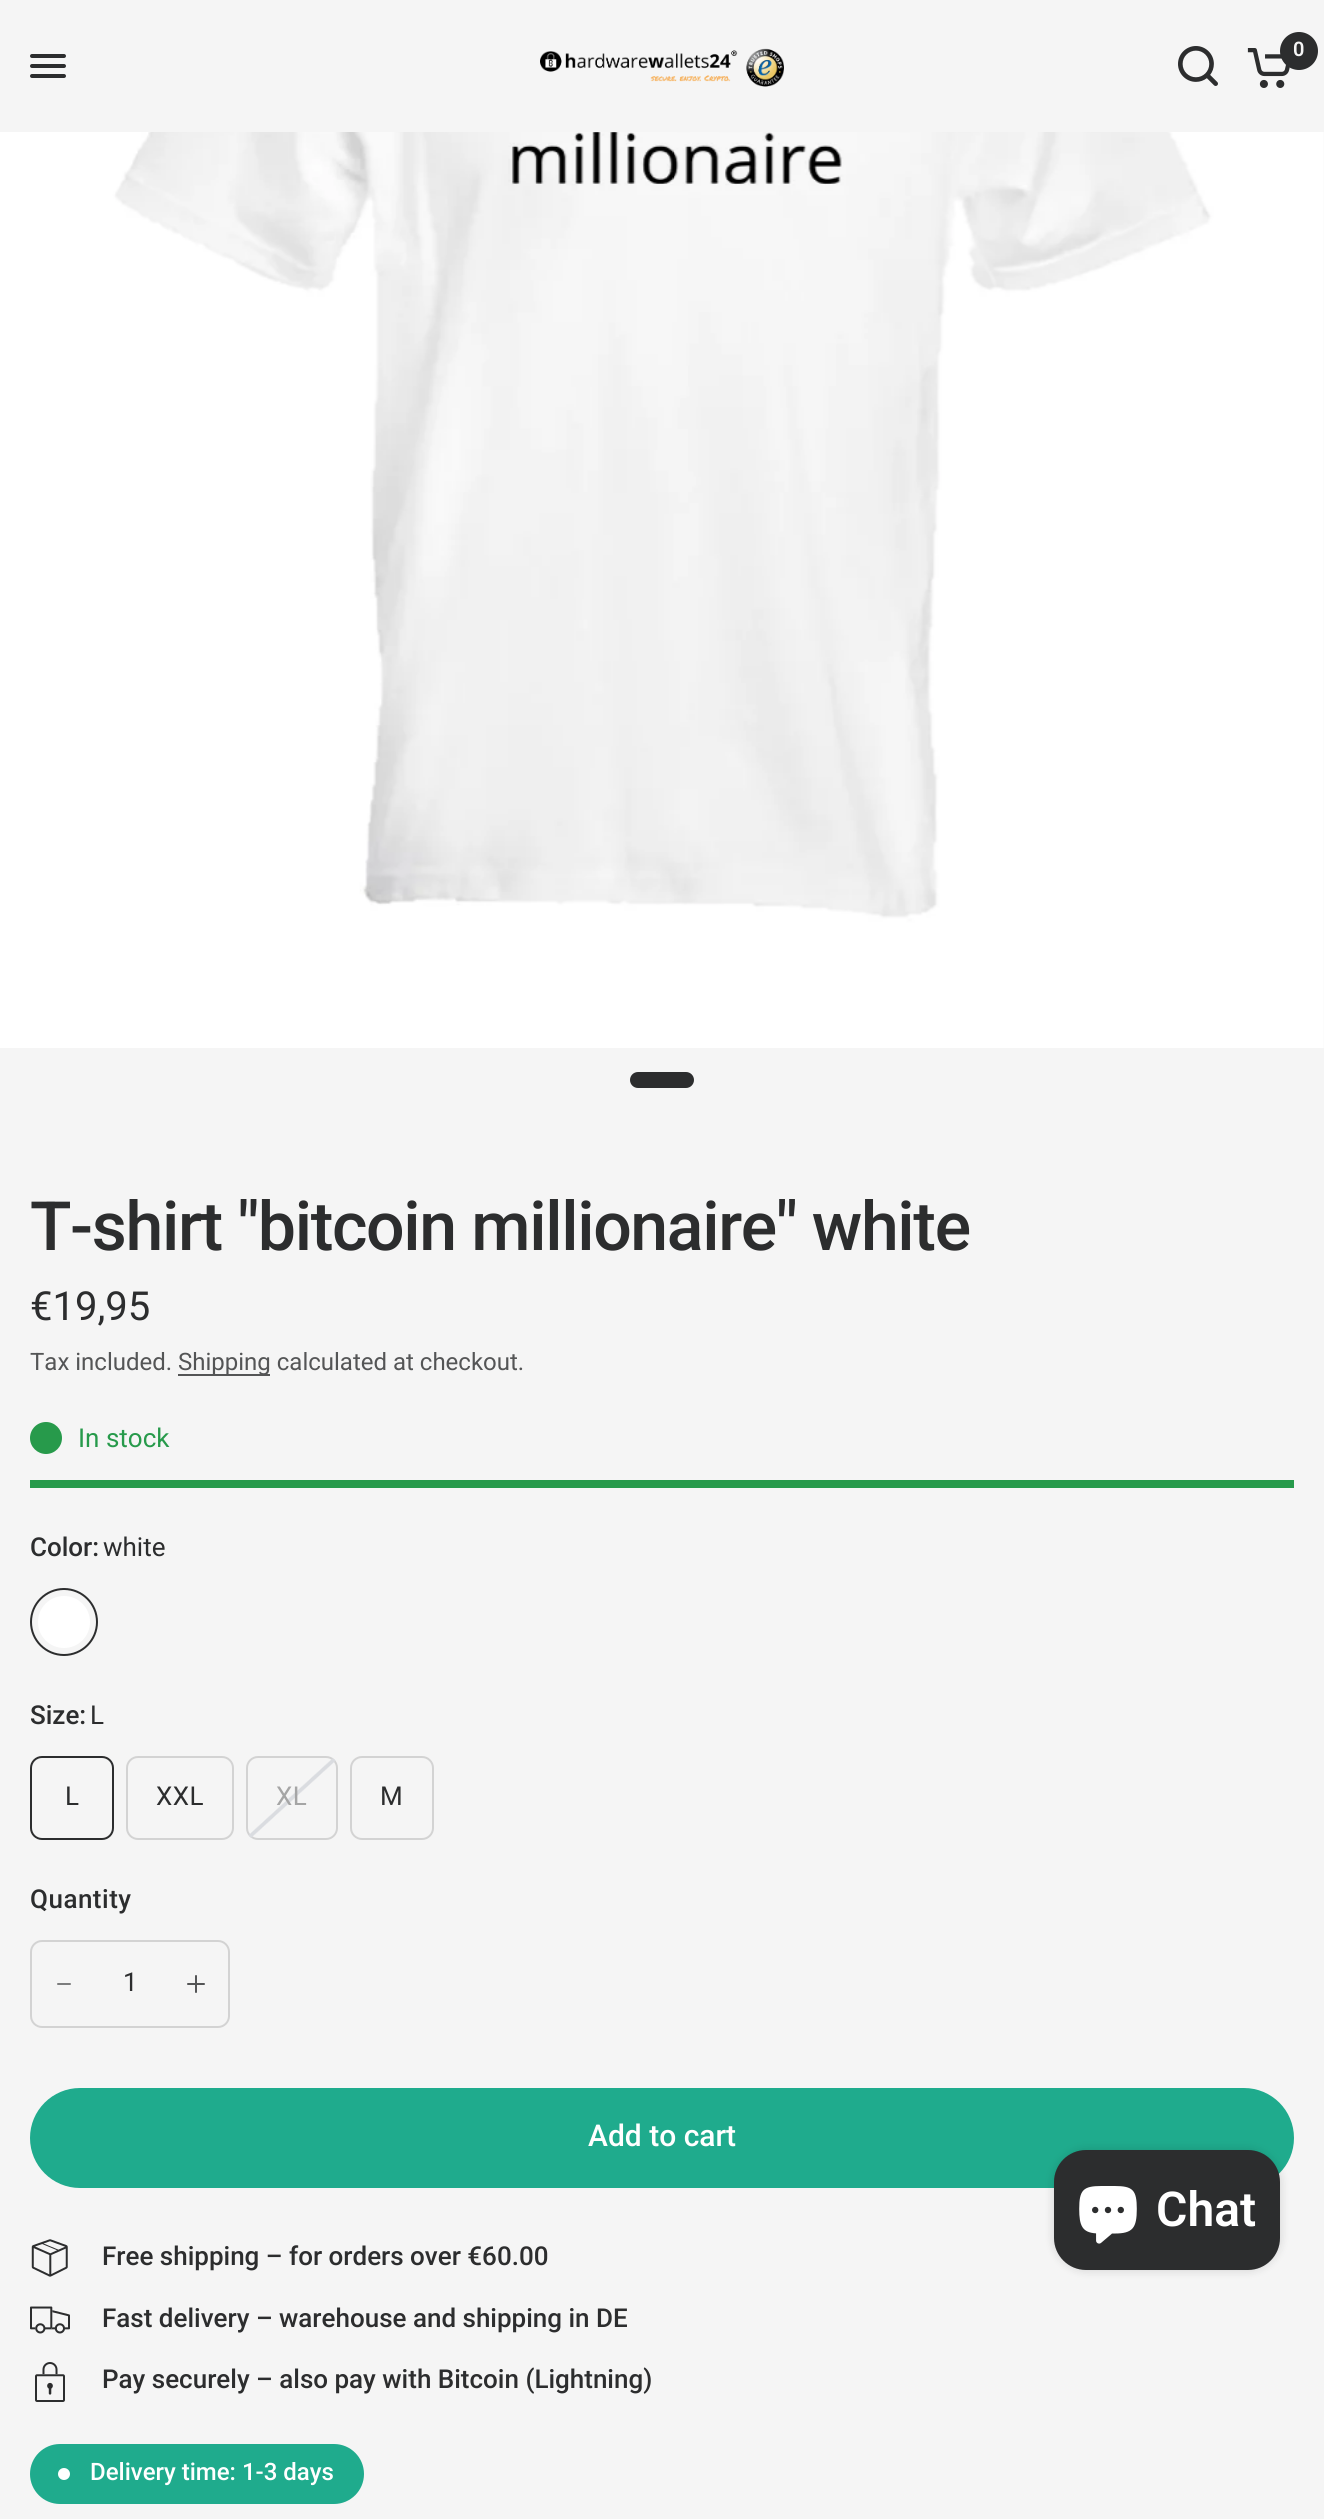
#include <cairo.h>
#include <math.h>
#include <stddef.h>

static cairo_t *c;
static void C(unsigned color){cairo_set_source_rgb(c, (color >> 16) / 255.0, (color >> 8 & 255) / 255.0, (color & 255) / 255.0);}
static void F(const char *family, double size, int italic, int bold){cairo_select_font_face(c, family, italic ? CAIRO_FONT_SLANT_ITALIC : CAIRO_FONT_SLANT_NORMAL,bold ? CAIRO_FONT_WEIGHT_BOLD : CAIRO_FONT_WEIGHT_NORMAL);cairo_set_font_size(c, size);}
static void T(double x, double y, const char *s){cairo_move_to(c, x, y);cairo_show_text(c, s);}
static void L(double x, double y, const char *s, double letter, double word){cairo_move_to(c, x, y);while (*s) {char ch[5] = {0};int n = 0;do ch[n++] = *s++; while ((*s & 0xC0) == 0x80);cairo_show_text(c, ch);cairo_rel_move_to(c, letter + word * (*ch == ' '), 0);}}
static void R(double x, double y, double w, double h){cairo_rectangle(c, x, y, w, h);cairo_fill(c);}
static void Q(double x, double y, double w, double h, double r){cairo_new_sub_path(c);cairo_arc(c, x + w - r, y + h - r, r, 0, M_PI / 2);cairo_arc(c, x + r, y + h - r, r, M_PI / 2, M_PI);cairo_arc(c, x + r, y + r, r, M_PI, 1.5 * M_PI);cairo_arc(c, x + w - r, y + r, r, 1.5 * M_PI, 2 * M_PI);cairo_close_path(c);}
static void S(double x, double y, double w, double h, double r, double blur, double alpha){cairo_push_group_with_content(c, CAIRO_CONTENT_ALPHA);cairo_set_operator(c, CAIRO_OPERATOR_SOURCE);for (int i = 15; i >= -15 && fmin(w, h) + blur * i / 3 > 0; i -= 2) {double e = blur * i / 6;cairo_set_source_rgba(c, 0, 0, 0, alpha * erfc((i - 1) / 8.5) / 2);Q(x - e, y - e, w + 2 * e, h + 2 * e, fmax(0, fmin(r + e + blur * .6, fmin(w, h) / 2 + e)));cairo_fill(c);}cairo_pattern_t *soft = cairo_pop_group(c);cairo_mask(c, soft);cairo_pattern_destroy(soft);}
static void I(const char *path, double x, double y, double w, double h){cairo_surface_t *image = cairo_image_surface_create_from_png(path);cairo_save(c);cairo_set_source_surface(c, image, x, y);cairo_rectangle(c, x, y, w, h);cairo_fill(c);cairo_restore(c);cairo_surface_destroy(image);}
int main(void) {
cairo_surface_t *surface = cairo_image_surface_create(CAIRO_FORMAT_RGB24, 1324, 2519);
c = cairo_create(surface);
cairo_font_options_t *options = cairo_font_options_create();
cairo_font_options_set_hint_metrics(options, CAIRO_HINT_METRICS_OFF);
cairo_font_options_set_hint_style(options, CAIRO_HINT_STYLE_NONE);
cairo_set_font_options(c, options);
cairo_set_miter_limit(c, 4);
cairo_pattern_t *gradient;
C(0xf5f5f5);
cairo_paint(c);
C(0x2c2d2e);
Q(30,54,36,4,2);
cairo_fill(c);
Q(30,64,36,4,2);
cairo_fill(c);
Q(30,74,36,4,2);
cairo_fill(c);
I("1.png",540,48,244,39);
I("2.png",1178,46,40,40);
I("3.png",1247,48,43,40);
cairo_arc(c,1299,51,19,0,2 * M_PI);
cairo_fill(c);
F("Roboto SemiBold",20,0,0);
C(0xf5f5f5);
T(1293,56,"0");
I("4.png",0,132,1324,916);
C(0x2c2d2e);
Q(630,1072,64,16,8);
cairo_fill(c);
F("Roboto Medium",68,0,0);
L(30,1250,"T-shirt \"bitcoin millionaire\" white",-1.35,0);
F("Roboto",40,0,0);
T(30,1320,"€19,95");
F("Roboto",24,0,0);
C(0x545556);
T(30,1370,"Tax included.");
R(178,1374,92,2);
T(178,1370,"Shipping calculated at checkout.");
C(0x279a4b);
cairo_new_path(c);
cairo_arc(c,46,1438,16,0,2 * M_PI);
cairo_fill(c);
F("Roboto",26,0,0);
T(78,1447,"In stock");
R(30,1480,1264,8);
F("Roboto Medium",26,0,0);
C(0x2c2d2e);
T(30,1556,"Color:");
F("Roboto",26,0,0);
T(103,1556,"white");
cairo_new_path(c);
cairo_arc(c,64,1622,33,0,2 * M_PI);
cairo_stroke(c);
C(0xffffff);
cairo_arc(c,64,1622,26,0,2 * M_PI);
cairo_fill(c);
F("Roboto Medium",26,0,0);
C(0x2c2d2e);
T(30,1724,"Size:");
F("Roboto",26,0,0);
T(90,1724,"L");
Q(31,1757,82,82,11);
cairo_stroke(c);
L(65,1805,"L",.5,0);
Q(127,1757,106,82,11);
C(0xd3d3d3);
cairo_stroke(c);
C(0x2c2d2e);
L(156,1805,"XXL",.5,0);
Q(247,1757,90,82,11);
C(0xd3d3d3);
cairo_stroke(c);
gradient = cairo_pattern_create_linear(250,1752,334,1844);
cairo_pattern_add_color_stop_rgba(gradient,0,0,0,0,0);
cairo_pattern_add_color_stop_rgba(gradient,.48,0.855,0.863,0.878,0);
cairo_pattern_add_color_stop_rgba(gradient,.49,0.855,0.863,0.878,1);
cairo_pattern_add_color_stop_rgba(gradient,.51,0.855,0.863,0.878,1);
cairo_pattern_add_color_stop_rgba(gradient,.52,0.855,0.863,0.878,0);
cairo_pattern_add_color_stop_rgba(gradient,1,0,0,0,0);
cairo_set_source(c,gradient);
cairo_pattern_destroy(gradient);
Q(246,1756,92,84,12);
cairo_fill(c);
C(0xa5a5a5);
L(276,1805,"XL",.5,0);
Q(351,1757,82,82,11);
C(0xd3d3d3);
cairo_stroke(c);
C(0x2c2d2e);
L(380,1805,"M",.5,0);
F("Roboto Medium",26,0,0);
L(30,1908,"Quantity",.5,0);
Q(31,1941,198,86,11);
C(0xd3d3d3);
cairo_stroke(c);
cairo_new_path(c);
cairo_move_to(c,58,1984);
cairo_line_to(c,70,1984);
C(0x7c7d7e);
cairo_set_line_cap(c,CAIRO_LINE_CAP_ROUND);
cairo_set_line_join(c,CAIRO_LINE_JOIN_ROUND);
cairo_stroke(c);
F("Roboto",26,0,0);
C(0x2c2d2e);
T(123,1991,"1");
cairo_new_path(c);
cairo_move_to(c,188,1984);
cairo_line_to(c,204,1984);
cairo_move_to(c,196,1976);
cairo_line_to(c,196,1992);
C(0x545556);
cairo_stroke(c);
C(0x1fab8d);
Q(30,2088,1264,100,50);
cairo_fill(c);
F("Roboto Medium",30,0,0);
C(0xffffff);
T(588,2146,"Add to cart");
I("5.png",31,2239,37,38);
F("Roboto Medium",26,0,0);
C(0x2c2d2e);
T(102,2265,"Free shipping – for orders over €60.00");
I("6.png",30,2306,40,28);
T(102,2327,"Fast delivery – warehouse and shipping in DE");
I("7.png",35,2362,30,40);
T(102,2388,"Pay securely – also pay with Bitcoin (Lightning)");
C(0x1fab8d);
Q(30,2444,334,60,30);
cairo_fill(c);
C(0xffffff);
cairo_arc(c,64,2474,6,0,2 * M_PI);
cairo_fill(c);
F("Roboto Medium",24,0,0);
T(90,2480,"Delivery time: 1-3 days");
C(0x000000);
S(1054,2150,226,120,32,5,.15);
C(0x2c2d2e);
Q(1054,2150,226,120,32);
cairo_fill(c);
I("8.png",1079,2186,58,58);
F("Roboto SemiBold",48,0,0);
C(0xffffff);
T(1156,2226,"Chat");
cairo_surface_write_to_png(surface, "o.png");
cairo_font_options_destroy(options);
cairo_destroy(c);
cairo_surface_destroy(surface);
return 0;
}
